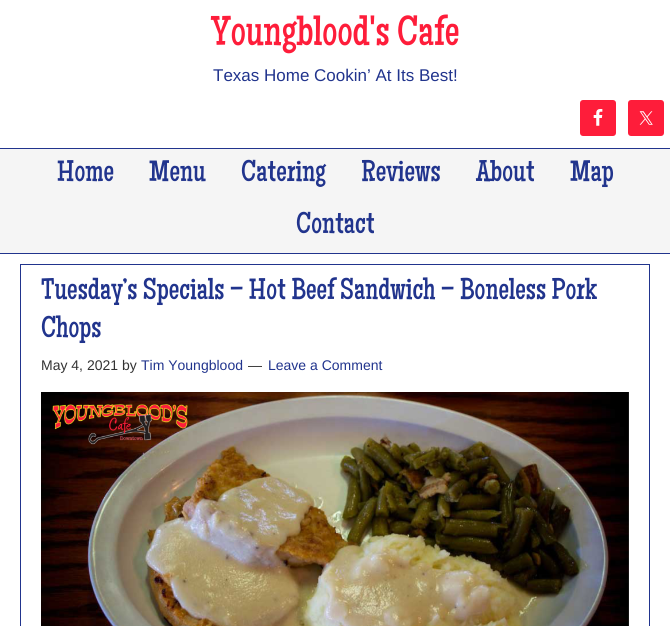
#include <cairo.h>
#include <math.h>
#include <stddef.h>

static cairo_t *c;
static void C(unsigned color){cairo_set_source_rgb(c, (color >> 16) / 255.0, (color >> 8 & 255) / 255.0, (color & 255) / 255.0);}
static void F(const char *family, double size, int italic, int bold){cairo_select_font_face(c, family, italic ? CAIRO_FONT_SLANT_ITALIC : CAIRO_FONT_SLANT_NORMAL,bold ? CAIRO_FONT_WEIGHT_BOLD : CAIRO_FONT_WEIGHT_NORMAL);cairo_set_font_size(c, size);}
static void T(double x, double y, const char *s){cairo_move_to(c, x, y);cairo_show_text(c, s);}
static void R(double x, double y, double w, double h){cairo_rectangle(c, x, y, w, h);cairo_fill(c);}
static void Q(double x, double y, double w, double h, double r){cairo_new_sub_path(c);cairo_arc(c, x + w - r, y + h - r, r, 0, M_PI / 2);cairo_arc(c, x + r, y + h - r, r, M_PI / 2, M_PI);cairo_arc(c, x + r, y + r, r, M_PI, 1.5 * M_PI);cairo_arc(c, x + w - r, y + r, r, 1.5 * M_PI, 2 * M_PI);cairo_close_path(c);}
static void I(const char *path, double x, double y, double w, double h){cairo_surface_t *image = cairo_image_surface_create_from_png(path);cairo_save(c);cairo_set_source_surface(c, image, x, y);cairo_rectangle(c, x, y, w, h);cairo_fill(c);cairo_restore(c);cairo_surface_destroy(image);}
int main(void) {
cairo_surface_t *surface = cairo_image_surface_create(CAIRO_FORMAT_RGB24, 670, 626);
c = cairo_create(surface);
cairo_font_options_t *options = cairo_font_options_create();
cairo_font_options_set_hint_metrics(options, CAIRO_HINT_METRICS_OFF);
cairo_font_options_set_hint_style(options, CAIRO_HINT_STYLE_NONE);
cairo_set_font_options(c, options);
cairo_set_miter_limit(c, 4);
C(0xffffff);
cairo_paint(c);
F("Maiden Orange",42,0,0);
C(0xfe1d3a);
T(211,45,"Youngblood's Cafe");
F("Liberation Sans",17,0,0);
C(0x21348d);
T(213,81,"Texas Home Cookin’ At Its Best!");
C(0xfe1d3a);
Q(580,100,36,36,3);
cairo_fill(c);
I("1.png",593,109,10,17);
Q(628,100,36,36,3);
cairo_fill(c);
I("2.png",639,111,14,14);
C(0xf5f5f5);
R(0,149,670,104);
C(0x21348d);
R(0,148,670,1);
R(0,253,670,1);
F("Maiden Orange",30,0,0);
T(57,181,"Home");
T(149,181,"Menu");
T(241,181,"Catering");
T(361,181,"Reviews");
T(476,181,"About");
T(570,181,"Map");
T(296,233,"Contact");
cairo_rectangle(c,20.5,264.5,629,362);
cairo_set_line_width(c,1);
cairo_stroke(c);
T(41,299,"Tuesday’s Specials – Hot Beef Sandwich – Boneless Pork");
T(41,337,"Chops");
F("Liberation Sans",14,0,0);
C(0x333333);
T(41,370,"May 4, 2021 by");
C(0x21348d);
T(141,370,"Tim Youngblood");
C(0x333333);
T(248,370,"—");
C(0x21348d);
T(268,370,"Leave a Comment");
I("3.png",41,392,588,234);
cairo_surface_write_to_png(surface, "o.png");
cairo_font_options_destroy(options);
cairo_destroy(c);
cairo_surface_destroy(surface);
return 0;
}
